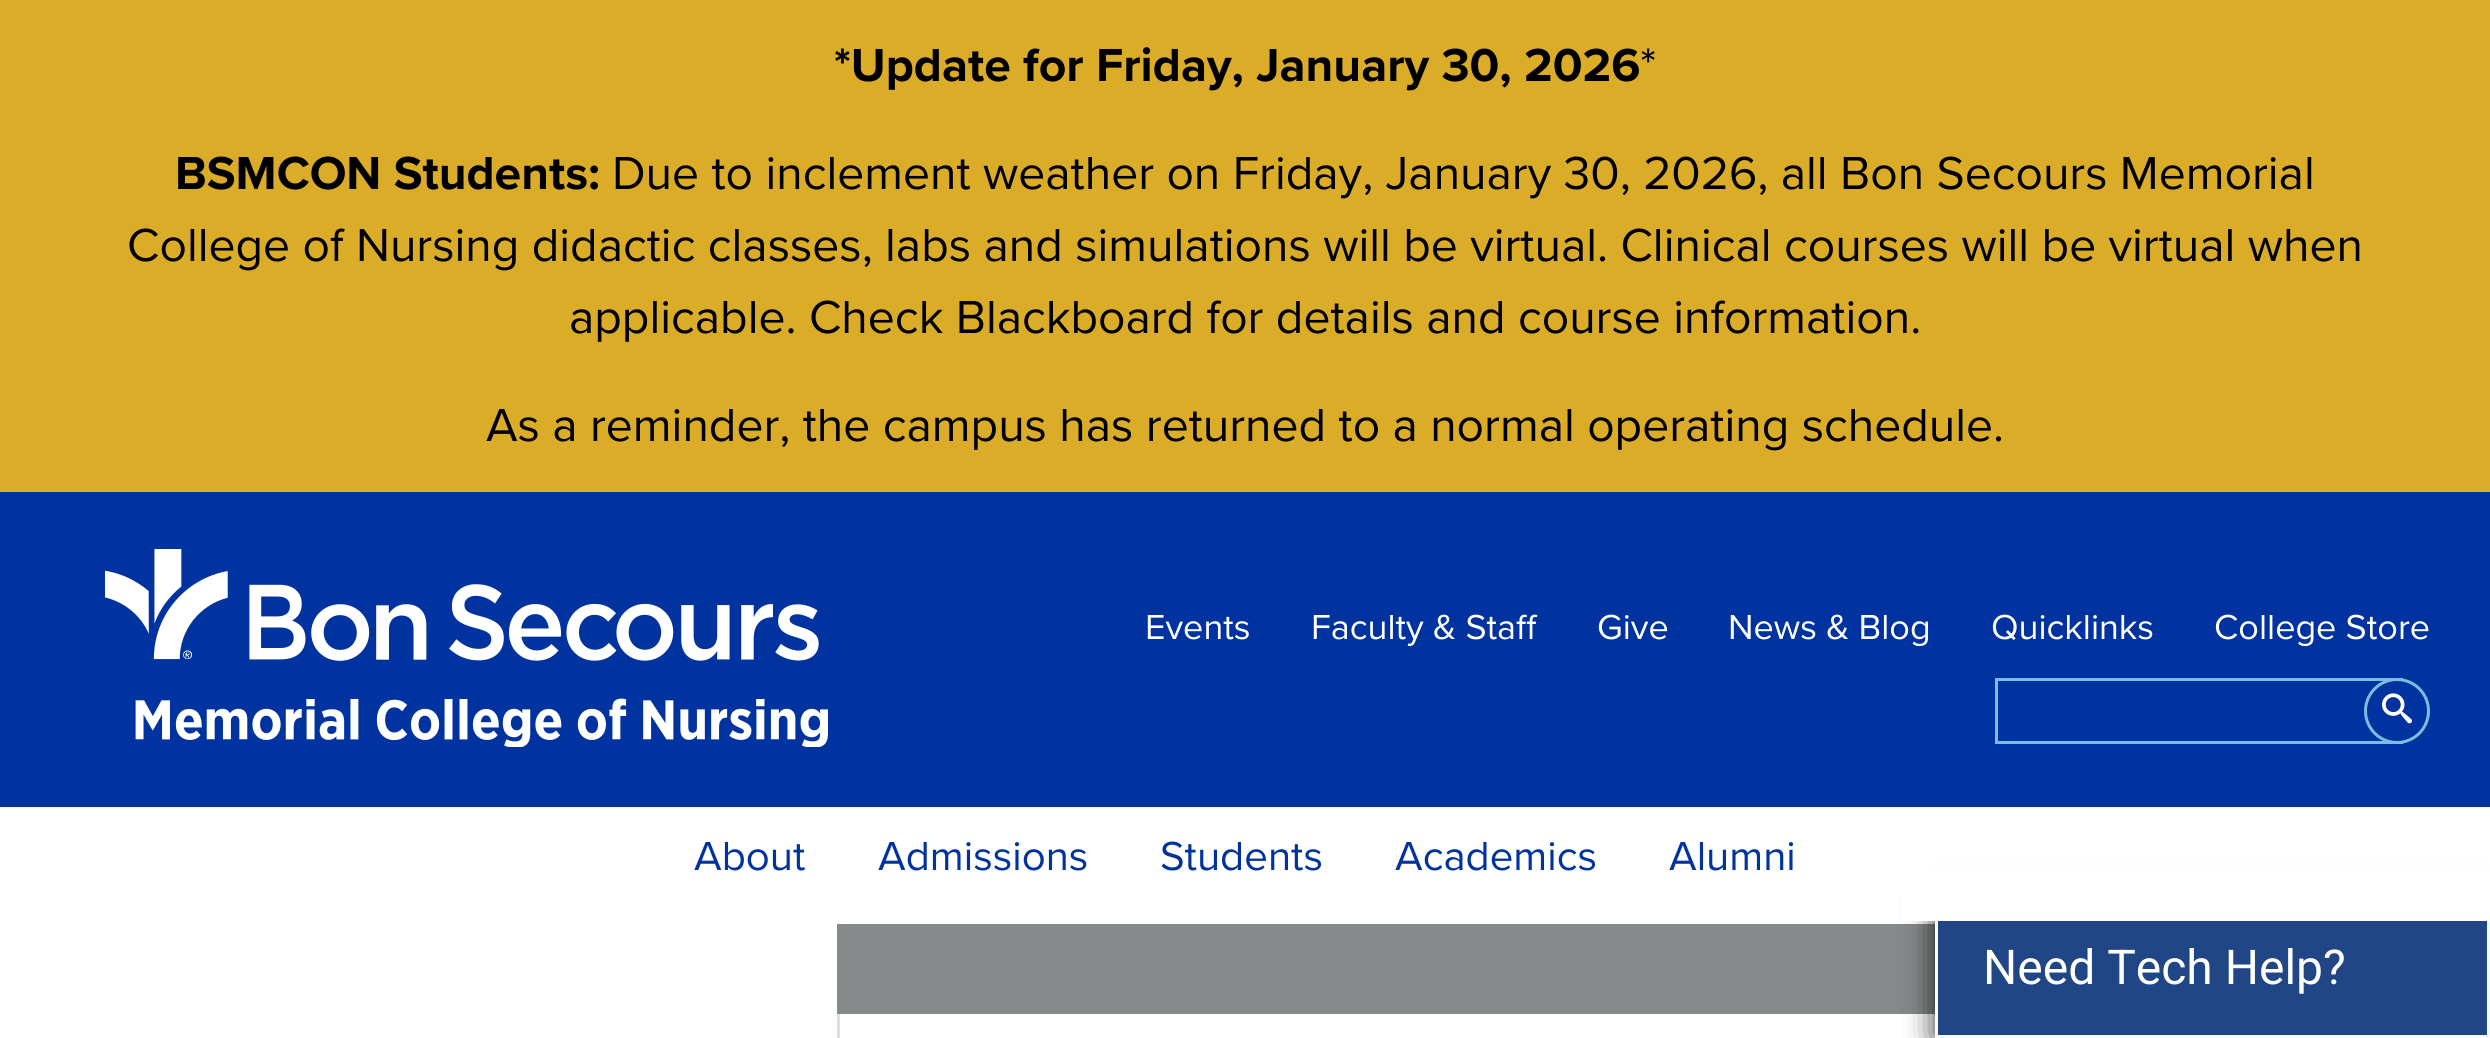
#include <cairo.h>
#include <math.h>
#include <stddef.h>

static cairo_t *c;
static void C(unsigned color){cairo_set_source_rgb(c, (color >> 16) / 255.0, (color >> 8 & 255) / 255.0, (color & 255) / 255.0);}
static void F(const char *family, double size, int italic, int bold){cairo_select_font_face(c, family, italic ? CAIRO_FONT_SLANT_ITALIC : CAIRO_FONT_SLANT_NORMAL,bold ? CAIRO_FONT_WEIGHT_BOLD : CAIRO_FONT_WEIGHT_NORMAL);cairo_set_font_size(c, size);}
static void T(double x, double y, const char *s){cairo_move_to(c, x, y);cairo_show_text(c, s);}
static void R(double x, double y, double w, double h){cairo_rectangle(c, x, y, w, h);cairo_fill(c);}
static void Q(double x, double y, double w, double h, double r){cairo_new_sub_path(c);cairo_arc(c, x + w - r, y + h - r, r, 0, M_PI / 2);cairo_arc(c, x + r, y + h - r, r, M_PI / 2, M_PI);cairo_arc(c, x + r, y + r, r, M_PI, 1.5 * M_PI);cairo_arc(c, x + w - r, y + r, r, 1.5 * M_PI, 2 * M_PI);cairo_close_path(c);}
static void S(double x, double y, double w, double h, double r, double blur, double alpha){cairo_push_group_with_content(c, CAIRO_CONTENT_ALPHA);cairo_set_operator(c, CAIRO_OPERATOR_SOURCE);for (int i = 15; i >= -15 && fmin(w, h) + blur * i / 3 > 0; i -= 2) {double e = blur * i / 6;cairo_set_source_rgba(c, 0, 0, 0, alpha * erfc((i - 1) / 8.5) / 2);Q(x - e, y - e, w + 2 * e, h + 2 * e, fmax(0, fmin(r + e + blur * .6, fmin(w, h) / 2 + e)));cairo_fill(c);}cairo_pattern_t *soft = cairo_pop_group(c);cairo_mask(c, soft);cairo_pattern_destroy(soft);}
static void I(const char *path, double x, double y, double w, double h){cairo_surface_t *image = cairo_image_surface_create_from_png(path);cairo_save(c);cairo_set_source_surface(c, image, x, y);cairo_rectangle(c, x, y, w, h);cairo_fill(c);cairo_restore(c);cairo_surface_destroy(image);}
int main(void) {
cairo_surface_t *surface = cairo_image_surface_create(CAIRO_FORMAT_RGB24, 2490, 1038);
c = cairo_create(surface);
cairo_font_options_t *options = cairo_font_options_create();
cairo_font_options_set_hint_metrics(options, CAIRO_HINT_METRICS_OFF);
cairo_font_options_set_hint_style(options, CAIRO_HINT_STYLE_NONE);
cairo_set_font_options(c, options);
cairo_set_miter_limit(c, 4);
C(0xffffff);
cairo_paint(c);
C(0x0033a0);
R(0,492,2490,315);
C(0xdbac28);
R(0,0,2490,492);
F("Proxima Nova",48,0,1);
C(0x000000);
T(834,81,"*Update for Friday, January 30, 2026");
F("Proxima Nova",48,0,0);
T(1640,81,"*");
F("Proxima Nova",48,0,1);
T(175,189,"BSMCON Students:");
F("Proxima Nova",48,0,0);
T(612,189,"Due to inclement weather on Friday, January 30, 2026, all Bon Secours Memorial");
T(127,261,"College of Nursing didactic classes, labs and simulations will be virtual. Clinical courses will be virtual when");
T(569,333,"applicable. Check Blackboard for details and course information.");
T(486,441,"As a reminder, the campus has returned to a normal operating schedule.");
I("1.png",105,549,723,198);
F("Proxima Nova",36,0,0);
C(0xffffff);
T(1145,639,"Events");
T(1311,639,"Faculty & Staff");
T(1597,639,"Give");
T(1728,639,"News & Blog");
T(1991,639,"Quicklinks");
T(2214,639,"College Store");
C(0x7bbedf);
R(1995,678,408,3);
R(1995,741,408,3);
R(1995,678,3,66);
I("2.png",2382,693,30,31);
cairo_arc(c,2397,711,31.5,0,2 * M_PI);
cairo_set_line_width(c,3);
cairo_stroke(c);
C(0x86898a);
R(837,924,1098,90);
C(0x000000);
S(1935,900,555,138,0,15,.8);
C(0xffffff);
R(1902,866,588,55);
F("Proxima Nova",42,0,0);
C(0x0033a0);
T(694,870,"About");
T(878,870,"Admissions");
T(1160,870,"Students");
T(1395,870,"Academics");
T(1669,870,"Alumni");
C(0xdddddd);
R(837,1014,3,24);
C(0xfafafa);
R(1935,921,555,117);
C(0x214685);
R(1938,921,549,114);
F("Roboto",48,0,0);
C(0xffffff);
T(1983,984,"Need Tech Help?");
cairo_surface_write_to_png(surface, "o.png");
cairo_font_options_destroy(options);
cairo_destroy(c);
cairo_surface_destroy(surface);
return 0;
}
